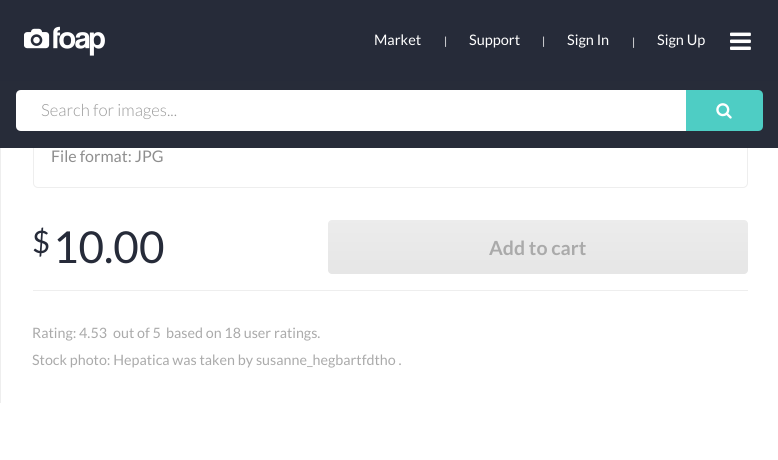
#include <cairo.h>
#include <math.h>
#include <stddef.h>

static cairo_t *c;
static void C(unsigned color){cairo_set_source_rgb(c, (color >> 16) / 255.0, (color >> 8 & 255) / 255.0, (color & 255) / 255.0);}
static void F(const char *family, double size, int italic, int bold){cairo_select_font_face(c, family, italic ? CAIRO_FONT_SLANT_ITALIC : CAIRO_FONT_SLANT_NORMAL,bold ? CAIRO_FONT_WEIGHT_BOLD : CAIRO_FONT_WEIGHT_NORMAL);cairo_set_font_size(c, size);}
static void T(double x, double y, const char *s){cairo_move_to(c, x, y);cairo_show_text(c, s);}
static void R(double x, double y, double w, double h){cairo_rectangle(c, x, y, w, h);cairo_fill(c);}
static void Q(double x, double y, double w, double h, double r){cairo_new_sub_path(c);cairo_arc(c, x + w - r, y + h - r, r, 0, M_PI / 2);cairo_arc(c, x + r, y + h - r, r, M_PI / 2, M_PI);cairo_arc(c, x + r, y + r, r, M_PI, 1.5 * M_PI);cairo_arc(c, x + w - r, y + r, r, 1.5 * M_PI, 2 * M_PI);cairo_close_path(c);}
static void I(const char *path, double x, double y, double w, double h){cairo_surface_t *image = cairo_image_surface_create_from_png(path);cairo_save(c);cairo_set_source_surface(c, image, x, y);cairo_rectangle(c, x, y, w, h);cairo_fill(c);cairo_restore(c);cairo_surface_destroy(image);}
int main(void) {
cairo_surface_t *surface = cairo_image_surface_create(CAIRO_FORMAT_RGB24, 778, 460);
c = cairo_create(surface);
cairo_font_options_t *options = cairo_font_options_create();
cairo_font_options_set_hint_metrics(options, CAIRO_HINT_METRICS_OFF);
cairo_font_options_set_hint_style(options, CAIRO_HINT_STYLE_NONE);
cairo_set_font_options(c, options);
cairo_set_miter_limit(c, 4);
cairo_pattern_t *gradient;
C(0xffffff);
cairo_paint(c);
Q(33.5,69.5,714,118,4.5);
C(0xeeeeee);
cairo_set_line_width(c,1);
cairo_stroke(c);
C(0x262b39);
R(0,0,778,81);
I("1.png",24,26,81,30);
F("Lato",14.5,0,0);
C(0xffffff);
T(374,45,"Market");
F("Lato",11,0,0);
T(444,45,"|");
F("Lato",14.5,0,0);
T(469,45,"Support");
F("Lato",11,0,0);
T(542,45,"|");
F("Lato",14.5,0,0);
T(567,45,"Sign In");
F("Lato",11,0,0);
T(632,46,"|");
F("Lato",14.5,0,0);
T(657,45,"Sign Up");
I("2.png",730,32,21,18);
C(0x272c39);
R(0,81,778,67);
C(0xffffff);
cairo_new_path(c);
cairo_move_to(c,21,90);
cairo_line_to(c,686,90);
cairo_line_to(c,686,131);
cairo_line_to(c,21,131);
cairo_curve_to(c,18,131,16,129,16,126);
cairo_line_to(c,16,95);
cairo_curve_to(c,16,92,18,90,21,90);
cairo_close_path(c);
cairo_fill(c);
F("Lato Light",16.75,0,0);
C(0x999999);
T(41,116,"Search for images...");
C(0x4ecdc4);
cairo_new_path(c);
cairo_move_to(c,686,90);
cairo_line_to(c,758,90);
cairo_curve_to(c,761,90,763,92,763,95);
cairo_line_to(c,763,126);
cairo_curve_to(c,763,129,761,131,758,131);
cairo_line_to(c,686,131);
cairo_close_path(c);
cairo_fill(c);
I("3.png",716,103,16,16);
C(0xeeeeee);
R(0,148,1,255);
F("Lato",16,0,0);
C(0x8e8e8e);
T(51,162,"File format: JPG");
F("Lato",31,0,0);
C(0x262b39);
T(32,253,"$");
F("Lato",44,0,0);
T(53,263,"10.00");
gradient = cairo_pattern_create_linear(538,274,538,220);
cairo_pattern_add_color_stop_rgba(gradient,0,0.902,0.902,0.902,1);
cairo_pattern_add_color_stop_rgba(gradient,1,0.925,0.925,0.925,1);
cairo_set_source(c,gradient);
cairo_pattern_destroy(gradient);
Q(328,220,420,54,4);
cairo_fill(c);
F("Lato",19.5,0,1);
C(0xaaaaaa);
T(489,255,"Add to cart");
C(0xeeeeee);
R(33,290,715,1);
F("Lato",14.3,0,0);
C(0xaaaaaa);
T(32,338,"Rating: 4.53");
T(113,338,"out of 5");
T(166,338,"based on 18 user ratings.");
T(32,365,"Stock photo: Hepatica was taken by susanne_hegbartfdtho .");
cairo_surface_write_to_png(surface, "o.png");
cairo_font_options_destroy(options);
cairo_destroy(c);
cairo_surface_destroy(surface);
return 0;
}
